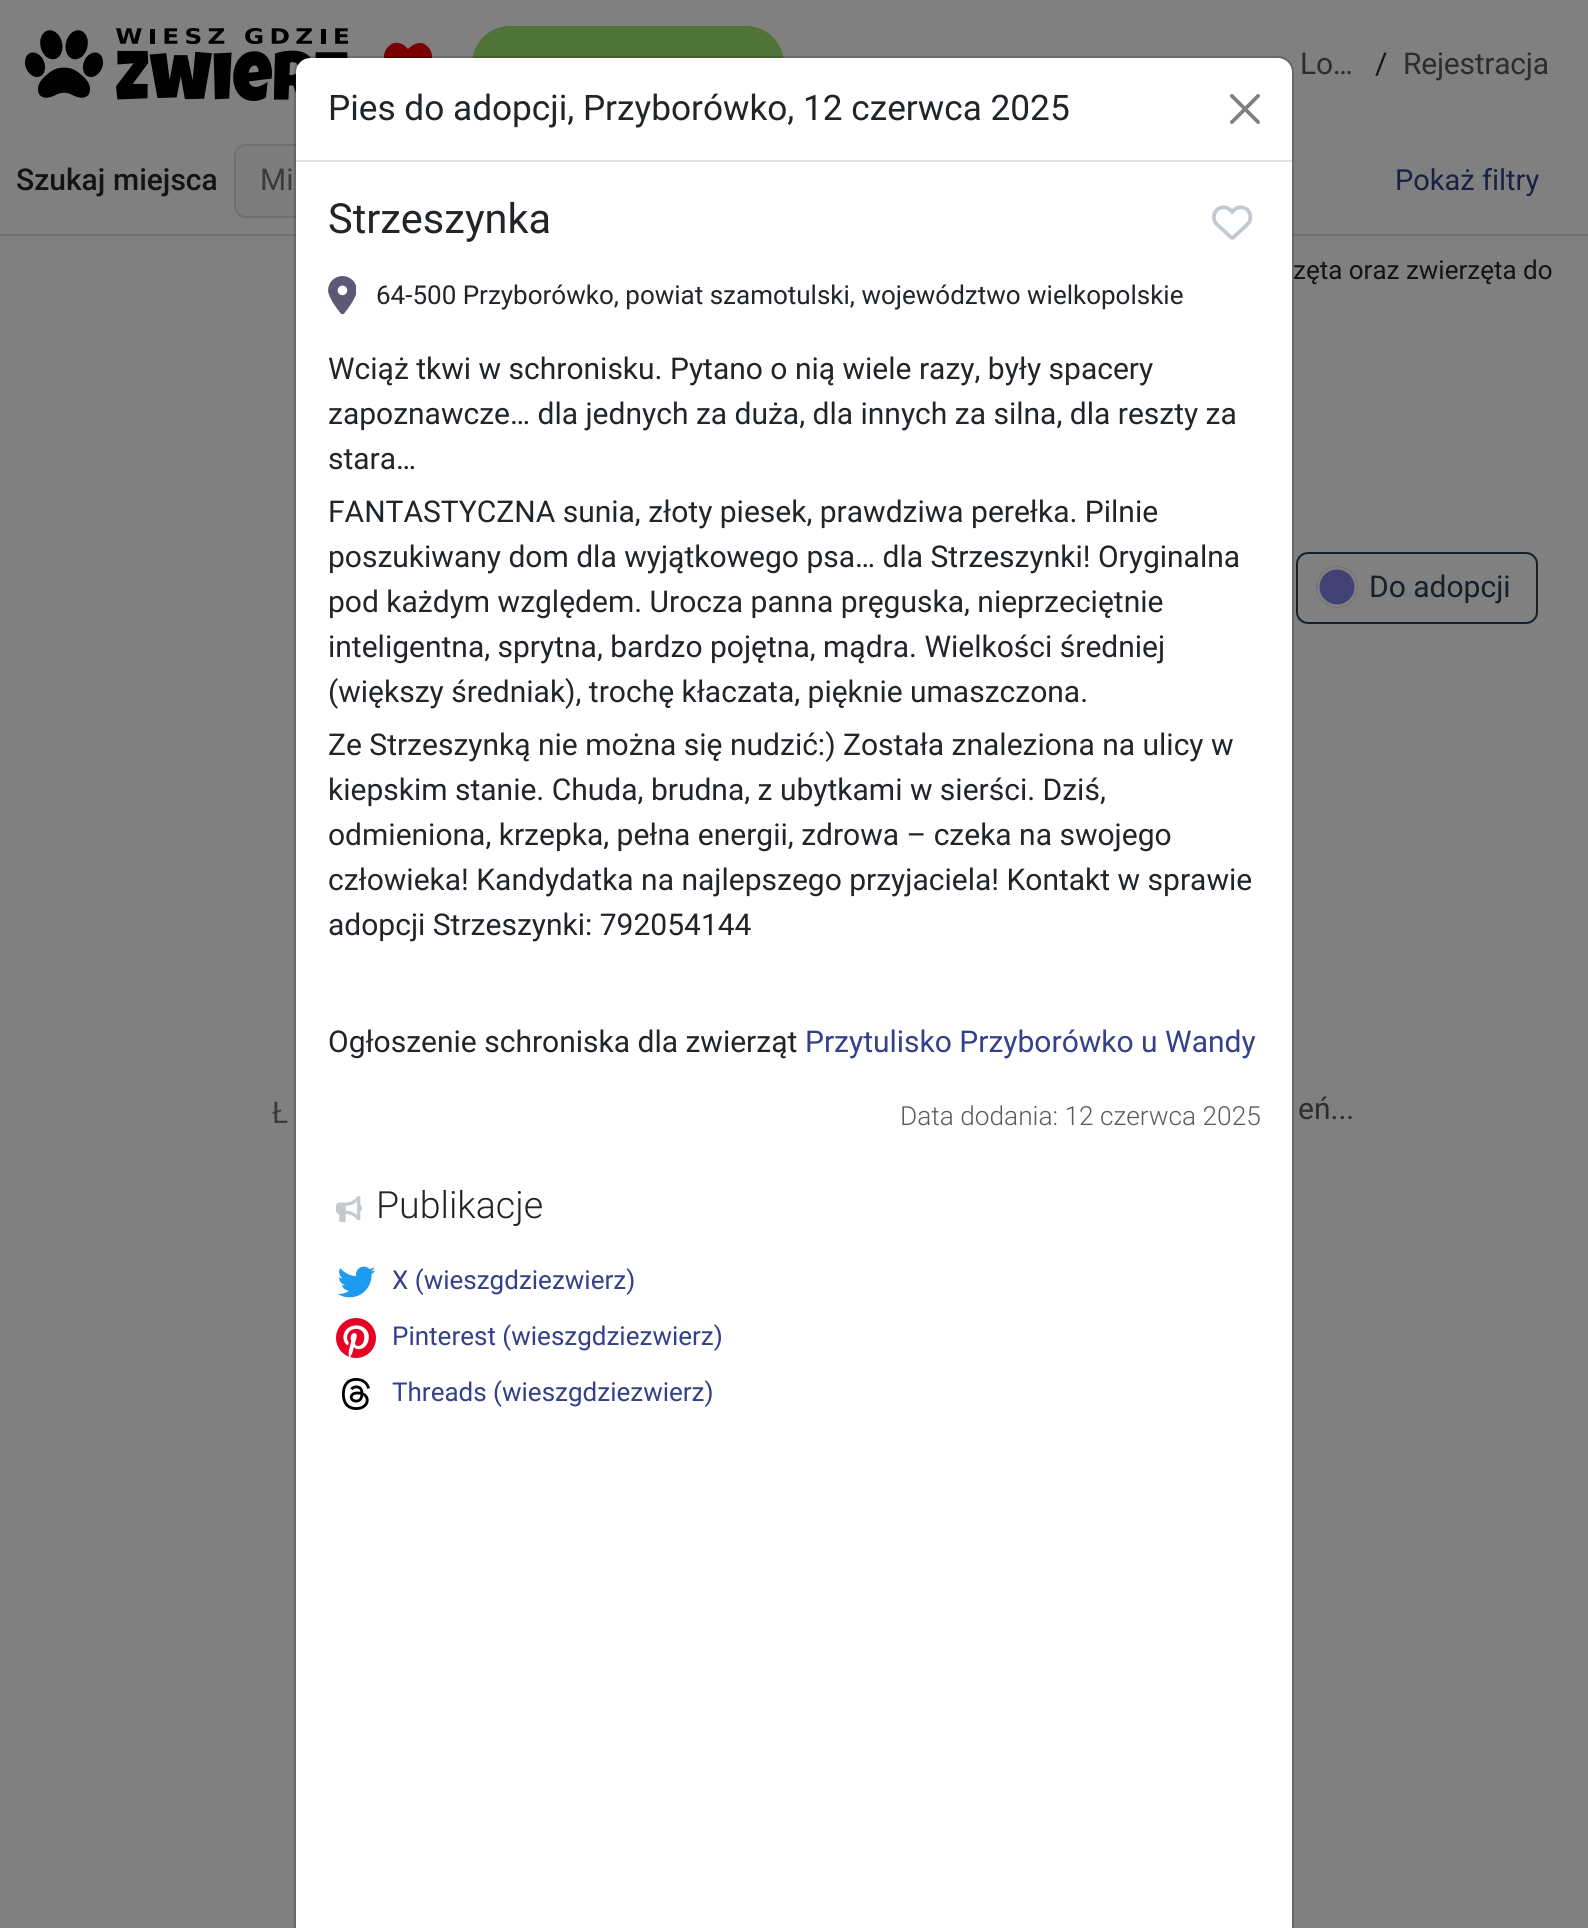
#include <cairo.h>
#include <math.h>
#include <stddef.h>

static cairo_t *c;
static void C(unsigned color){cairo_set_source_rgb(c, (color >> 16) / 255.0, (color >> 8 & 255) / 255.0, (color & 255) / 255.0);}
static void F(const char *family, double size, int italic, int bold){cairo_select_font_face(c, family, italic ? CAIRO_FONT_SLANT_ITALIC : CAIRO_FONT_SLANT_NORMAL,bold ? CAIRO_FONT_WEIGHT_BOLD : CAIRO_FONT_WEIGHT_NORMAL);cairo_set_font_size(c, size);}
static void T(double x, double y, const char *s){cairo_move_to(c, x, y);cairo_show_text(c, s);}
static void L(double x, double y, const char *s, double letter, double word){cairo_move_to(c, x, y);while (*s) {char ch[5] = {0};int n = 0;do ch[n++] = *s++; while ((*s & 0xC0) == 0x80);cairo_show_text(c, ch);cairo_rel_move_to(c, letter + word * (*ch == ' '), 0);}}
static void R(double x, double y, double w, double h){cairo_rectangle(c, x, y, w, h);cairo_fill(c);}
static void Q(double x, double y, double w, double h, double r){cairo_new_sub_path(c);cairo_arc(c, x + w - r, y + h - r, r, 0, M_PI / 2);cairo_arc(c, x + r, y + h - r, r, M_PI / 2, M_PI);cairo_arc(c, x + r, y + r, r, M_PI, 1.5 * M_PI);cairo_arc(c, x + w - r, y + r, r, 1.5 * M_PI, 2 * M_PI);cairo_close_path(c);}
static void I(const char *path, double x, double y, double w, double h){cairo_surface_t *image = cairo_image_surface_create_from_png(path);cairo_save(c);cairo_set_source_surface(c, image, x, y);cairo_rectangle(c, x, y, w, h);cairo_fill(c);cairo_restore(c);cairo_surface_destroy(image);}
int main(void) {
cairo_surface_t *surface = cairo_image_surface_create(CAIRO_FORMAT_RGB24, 1588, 1928);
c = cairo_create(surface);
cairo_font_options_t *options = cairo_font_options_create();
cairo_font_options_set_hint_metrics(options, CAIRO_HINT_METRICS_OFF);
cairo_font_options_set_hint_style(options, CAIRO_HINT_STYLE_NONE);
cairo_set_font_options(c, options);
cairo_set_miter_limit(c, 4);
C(0x808080);
cairo_paint(c);
I("1.png",24,30,80,68);
I("2.png",116,28,232,73);
C(0x7b0000);
cairo_new_path(c);
cairo_move_to(c,427,46);
cairo_curve_to(c,421,40,413,44,408,49);
cairo_line_to(c,406,47);
cairo_curve_to(c,401,42,394,41,389,46);
cairo_curve_to(c,383,51,382,60,388,65);
cairo_line_to(c,406,84);
cairo_curve_to(c,407,85,409,85,410,84);
cairo_line_to(c,428,65);
cairo_curve_to(c,434,60,433,51,427,46);
cairo_close_path(c);
cairo_fill(c);
C(0x507438);
Q(472,26,312,76,38);
cairo_fill(c);
F("Roboto",30,0,0);
C(0x2d2d2d);
L(1300,74,"Lo…",-.25,0);
C(0x111315);
T(1375,74,"/");
C(0x2d2d2d);
L(1403,74,"Rejestracja",-.25,0);
C(0x6f7173);
R(0,234,296,2);
F("Roboto Medium",30,0,0);
C(0x111315);
T(16,190,"Szukaj");
T(113,190,"miejsca");
C(0x7d7d7d);
Q(235,145,470,72,11);
cairo_fill_preserve(c);
C(0x6f7173);
cairo_stroke(c);
F("Roboto",30,0,0);
C(0x3b3b3b);
T(260,190,"Mi");
T(272,1123,"Ł");
C(0xffffff);
cairo_new_path(c);
cairo_move_to(c,310,58);
cairo_line_to(c,1278,58);
cairo_curve_to(c,1285.5,58,1292,64.5,1292,72);
cairo_line_to(c,1292,1928);
cairo_line_to(c,296,1928);
cairo_line_to(c,296,72);
cairo_curve_to(c,296,64.5,302.5,58,310,58);
cairo_close_path(c);
cairo_fill(c);
C(0x6f7173);
R(1292,234,296,2);
F("Roboto",26,0,0);
C(0x111315);
T(1293,279,"zęta oraz zwierzęta do");
Q(295,57,998,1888,15);
cairo_set_source_rgba(c,0,0,0,0.18);
cairo_stroke(c);
C(0xdee2e6);
R(296,160,996,2);
F("Roboto",35.2,0,0);
C(0x212529);
T(328,120,"Pies do adopcji, Przyborówko, 12 czerwca 2025");
I("3.png",1230,94,30,30);
F("Roboto",41.5,0,0);
T(328,233,"Strzeszynka");
I("4.png",1212,205,40,35);
I("5.png",328,276,28,38);
F("Roboto",26,0,0);
T(376,304,"64-500 Przyborówko, powiat szamotulski, województwo wielkopolskie");
F("Roboto",30,0,0);
T(328,379,"Wciąż tkwi w schronisku. Pytano o nią wiele razy, były spacery");
T(328,424,"zapoznawcze… dla jednych za duża, dla innych za silna, dla reszty za");
T(328,469,"stara…");
T(328,522,"FANTASTYCZNA sunia, złoty piesek, prawdziwa perełka. Pilnie");
T(328,567,"poszukiwany dom dla wyjątkowego psa… dla Strzeszynki! Oryginalna");
T(328,612,"pod każdym względem. Urocza panna pręguska, nieprzeciętnie");
T(328,657,"inteligentna, sprytna, bardzo pojętna, mądra. Wielkości średniej");
T(328,702,"(większy średniak), trochę kłaczata, pięknie umaszczona.");
T(328,755,"Ze Strzeszynką nie można się nudzić:) Została znaleziona na ulicy w");
T(328,800,"kiepskim stanie. Chuda, brudna, z ubytkami w sierści. Dziś,");
T(328,845,"odmieniona, krzepka, pełna energii, zdrowa – czeka na swojego");
T(328,890,"człowieka! Kandydatka na najlepszego przyjaciela! Kontakt w sprawie");
T(328,935,"adopcji Strzeszynki: 792054144");
T(328,1052,"Ogłoszenie schroniska dla zwierząt");
C(0x33408a);
T(805,1052,"Przytulisko Przyborówko u Wandy");
F("Roboto Light",26.25,0,0);
C(0x595c5f);
T(900,1125,"Data dodania: 12 czerwca 2025");
I("6.png",336,1196,26,26);
F("Roboto Light",37.5,0,0);
C(0x212529);
T(376,1218,"Publikacje");
I("7.png",337,1266,39,32);
F("Roboto",26,0,0);
C(0x33408a);
T(392,1289,"X (wieszgdziezwierz)");
I("8.png",336,1318,40,40);
T(392,1345,"Pinterest (wieszgdziezwierz)");
I("9.png",341,1378,29,32);
T(392,1401,"Threads (wieszgdziezwierz)");
F("Roboto",29,0,0);
C(0x1a2045);
T(1395,190,"Pokaż filtry");
Q(1297,553,240,70,11);
C(0x161f28);
cairo_stroke(c);
I("10.png",1316,566,42,42);
F("Roboto",30,0,0);
T(1369,597,"Do adopcji");
C(0x2d2d2d);
T(1298,1119,"eń...");
cairo_surface_write_to_png(surface, "o.png");
cairo_font_options_destroy(options);
cairo_destroy(c);
cairo_surface_destroy(surface);
return 0;
}
